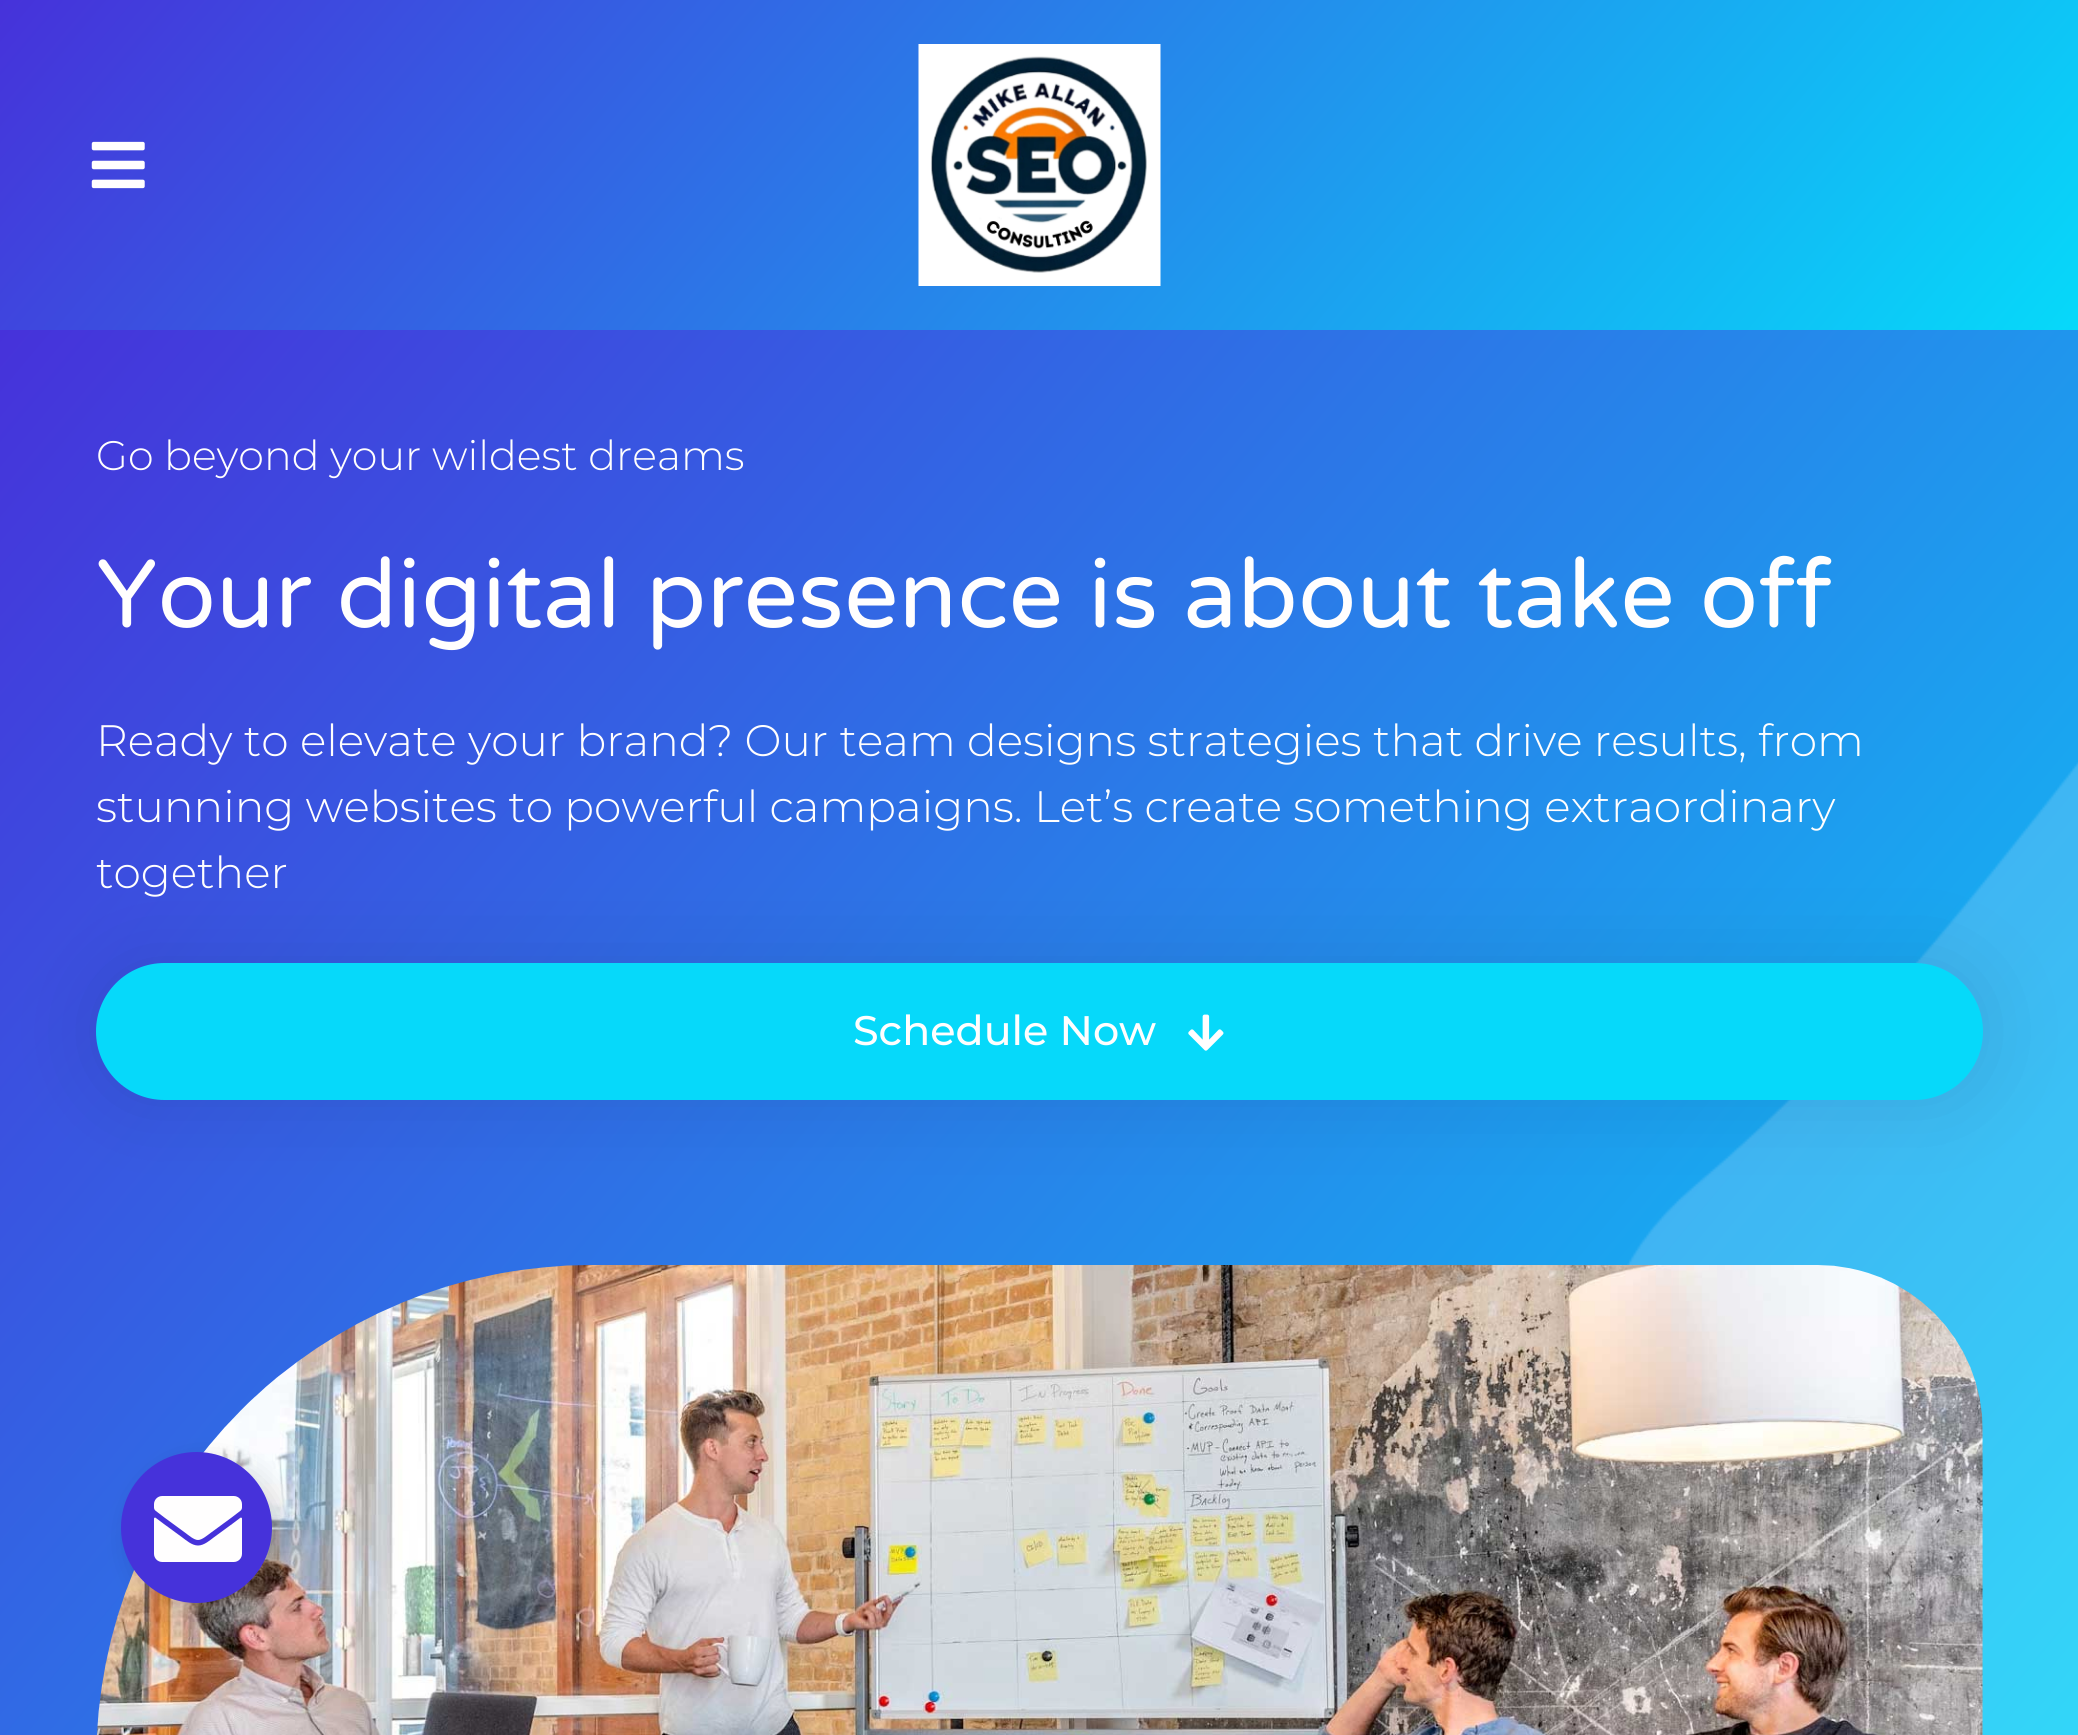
#include <cairo.h>
#include <math.h>
#include <stddef.h>

static cairo_t *c;
static void C(unsigned color){cairo_set_source_rgb(c, (color >> 16) / 255.0, (color >> 8 & 255) / 255.0, (color & 255) / 255.0);}
static void F(const char *family, double size, int italic, int bold){cairo_select_font_face(c, family, italic ? CAIRO_FONT_SLANT_ITALIC : CAIRO_FONT_SLANT_NORMAL,bold ? CAIRO_FONT_WEIGHT_BOLD : CAIRO_FONT_WEIGHT_NORMAL);cairo_set_font_size(c, size);}
static void T(double x, double y, const char *s){cairo_move_to(c, x, y);cairo_show_text(c, s);}
static void R(double x, double y, double w, double h){cairo_rectangle(c, x, y, w, h);cairo_fill(c);}
static void Q(double x, double y, double w, double h, double r){cairo_new_sub_path(c);cairo_arc(c, x + w - r, y + h - r, r, 0, M_PI / 2);cairo_arc(c, x + r, y + h - r, r, M_PI / 2, M_PI);cairo_arc(c, x + r, y + r, r, M_PI, 1.5 * M_PI);cairo_arc(c, x + w - r, y + r, r, 1.5 * M_PI, 2 * M_PI);cairo_close_path(c);}
static void S(double x, double y, double w, double h, double r, double blur, double alpha){cairo_push_group_with_content(c, CAIRO_CONTENT_ALPHA);cairo_set_operator(c, CAIRO_OPERATOR_SOURCE);for (int i = 15; i >= -15 && fmin(w, h) + blur * i / 3 > 0; i -= 2) {double e = blur * i / 6;cairo_set_source_rgba(c, 0, 0, 0, alpha * erfc((i - 1) / 8.5) / 2);Q(x - e, y - e, w + 2 * e, h + 2 * e, fmax(0, fmin(r + e + blur * .6, fmin(w, h) / 2 + e)));cairo_fill(c);}cairo_pattern_t *soft = cairo_pop_group(c);cairo_mask(c, soft);cairo_pattern_destroy(soft);}
static void I(const char *path, double x, double y, double w, double h){cairo_surface_t *image = cairo_image_surface_create_from_png(path);cairo_save(c);cairo_set_source_surface(c, image, x, y);cairo_rectangle(c, x, y, w, h);cairo_fill(c);cairo_restore(c);cairo_surface_destroy(image);}
int main(void) {
cairo_surface_t *surface = cairo_image_surface_create(CAIRO_FORMAT_RGB24, 2078, 1735);
c = cairo_create(surface);
cairo_font_options_t *options = cairo_font_options_create();
cairo_font_options_set_hint_metrics(options, CAIRO_HINT_METRICS_OFF);
cairo_font_options_set_hint_style(options, CAIRO_HINT_STYLE_NONE);
cairo_set_font_options(c, options);
cairo_set_miter_limit(c, 4);
cairo_pattern_t *gradient;
C(0xffffff);
cairo_paint(c);
gradient = cairo_pattern_create_linear(348,-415,1731,745);
cairo_pattern_add_color_stop_rgba(gradient,0,0.275,0.196,0.855,1);
cairo_pattern_add_color_stop_rgba(gradient,1,0.024,0.851,0.98,1);
cairo_set_source(c,gradient);
cairo_pattern_destroy(gradient);
R(0,0,2078,330);
I("1.png",91,141,54,48);
I("2.png",918,44,243,242);
gradient = cairo_pattern_create_linear(13,314,2066,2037);
cairo_pattern_add_color_stop_rgba(gradient,0,0.275,0.196,0.855,1);
cairo_pattern_add_color_stop_rgba(gradient,1,0.024,0.851,0.98,1);
cairo_set_source(c,gradient);
cairo_pattern_destroy(gradient);
R(0,330,2078,1405);
F("Montserrat Light",41.25,0,0);
C(0xfffefe);
T(96,470,"Go beyond your wildest dreams");
F("Varela Round",96.25,0,0);
T(96,627,"Your digital presence is about take off");
I("4.png",1627,762,451,973);
F("Montserrat Light",44,0,0);
T(96,756,"Ready to elevate your brand? Our team designs strategies that drive results, from");
T(96,822,"stunning websites to powerful campaigns. Let’s create something extraordinary");
T(96,888,"together");
C(0x000000);
S(96,963,1887,137,68.5,41,.1);
C(0x06d9fa);
Q(96,963,1887,137,68.5);
cairo_fill(c);
F("Montserrat Medium",41.25,0,0);
C(0xfffefe);
T(853,1045,"Schedule Now");
I("3.png",1188,1014,36,37);
I("5.png",96,1265,1887,470);
C(0x000000);
S(132,1463,151,151,75.5,14,.15);
C(0x4632da);
cairo_arc(c,196.5,1527.5,75.5,0,2 * M_PI);
cairo_fill(c);
I("6.png",154,1496,88,66);
cairo_surface_write_to_png(surface, "o.png");
cairo_font_options_destroy(options);
cairo_destroy(c);
cairo_surface_destroy(surface);
return 0;
}
